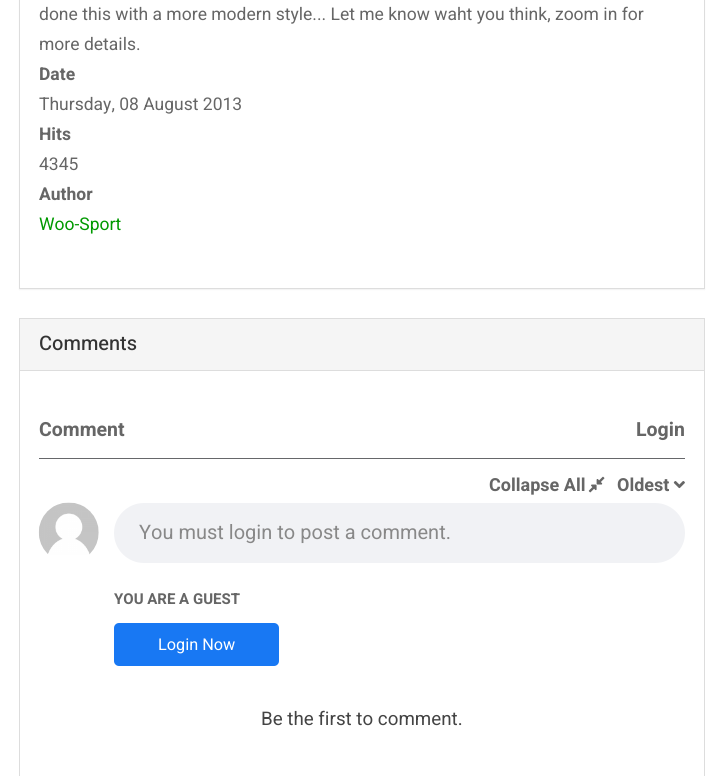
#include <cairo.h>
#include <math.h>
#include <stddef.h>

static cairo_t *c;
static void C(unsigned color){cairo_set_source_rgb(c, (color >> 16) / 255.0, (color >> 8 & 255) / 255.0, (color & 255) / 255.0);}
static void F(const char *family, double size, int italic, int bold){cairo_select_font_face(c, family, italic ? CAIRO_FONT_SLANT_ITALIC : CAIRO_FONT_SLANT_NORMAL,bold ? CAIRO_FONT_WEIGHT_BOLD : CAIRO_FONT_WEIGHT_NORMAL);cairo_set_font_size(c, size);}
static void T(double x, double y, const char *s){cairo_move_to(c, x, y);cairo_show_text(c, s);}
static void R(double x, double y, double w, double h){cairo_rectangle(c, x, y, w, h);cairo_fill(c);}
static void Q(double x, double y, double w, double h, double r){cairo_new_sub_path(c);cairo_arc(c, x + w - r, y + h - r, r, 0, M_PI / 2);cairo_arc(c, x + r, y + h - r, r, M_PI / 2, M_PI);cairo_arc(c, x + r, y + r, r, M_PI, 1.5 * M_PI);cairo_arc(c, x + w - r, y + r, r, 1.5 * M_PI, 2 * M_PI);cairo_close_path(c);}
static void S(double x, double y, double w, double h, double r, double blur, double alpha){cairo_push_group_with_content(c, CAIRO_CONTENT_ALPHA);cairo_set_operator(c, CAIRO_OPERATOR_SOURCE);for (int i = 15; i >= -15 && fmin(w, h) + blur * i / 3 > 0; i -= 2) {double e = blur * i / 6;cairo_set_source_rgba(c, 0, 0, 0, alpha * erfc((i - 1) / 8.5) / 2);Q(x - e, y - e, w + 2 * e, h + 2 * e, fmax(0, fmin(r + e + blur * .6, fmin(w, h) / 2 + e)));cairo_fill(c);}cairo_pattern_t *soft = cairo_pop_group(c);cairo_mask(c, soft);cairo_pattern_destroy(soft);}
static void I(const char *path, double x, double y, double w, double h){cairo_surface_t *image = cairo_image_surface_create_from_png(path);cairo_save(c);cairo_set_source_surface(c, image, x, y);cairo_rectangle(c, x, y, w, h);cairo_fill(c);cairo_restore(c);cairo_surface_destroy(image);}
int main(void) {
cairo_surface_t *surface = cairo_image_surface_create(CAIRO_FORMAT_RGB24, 723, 776);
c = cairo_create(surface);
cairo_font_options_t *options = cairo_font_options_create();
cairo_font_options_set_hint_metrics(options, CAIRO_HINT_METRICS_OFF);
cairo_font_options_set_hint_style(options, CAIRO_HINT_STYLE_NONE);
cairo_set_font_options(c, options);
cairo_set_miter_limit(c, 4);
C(0xffffff);
cairo_paint(c);
C(0x000000);
S(19,-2,686,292,0,.5,.05);
C(0xffffff);
cairo_rectangle(c,19.5,-.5,685,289);
cairo_fill_preserve(c);
C(0xdddddd);
cairo_set_line_width(c,1);
cairo_stroke(c);
F("Heebo",17.5,0,0);
C(0x666666);
T(39,20,"done this with a more modern style... Let me know waht you think, zoom in for");
T(39,50,"more details.");
F("Heebo",17.5,0,1);
T(39,80,"Date");
F("Heebo",17.5,0,0);
T(39,110,"Thursday, 08 August 2013");
F("Heebo",17.5,0,1);
T(39,140,"Hits");
F("Heebo",17.5,0,0);
T(39,170,"4345");
F("Heebo",17.5,0,1);
T(39,200,"Author");
F("Heebo",17.5,0,0);
C(0x009900);
T(39,230,"Woo-Sport");
cairo_rectangle(c,19.5,318.5,685,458);
C(0xdddddd);
cairo_stroke(c);
C(0xf5f5f5);
R(20,319,684,51);
C(0xdddddd);
R(20,370,684,1);
F("Heebo Medium",20,0,0);
C(0x333333);
T(39,350,"Comments");
C(0x66676a);
R(39,458,646,1);
F("Heebo",19.5,0,1);
C(0x666666);
T(39,436,"Comment");
T(636,436,"Login");
F("Heebo",18,0,1);
T(489,491,"Collapse All");
I("1.png",588,476,17,17);
T(617,491,"Oldest");
I("2.png",673,481,12,8);
I("3.png",38,502,61,53);
C(0xf1f2f5);
Q(114,503,571,60,30);
cairo_fill(c);
F("Heebo",20,0,0);
C(0x888888);
T(139,539,"You must login to post a comment.");
F("Heebo",15,0,1);
C(0x666666);
T(114,604,"YOU ARE A GUEST");
C(0x1878f3);
Q(114,623,165,43,5);
cairo_fill(c);
F("Heebo",16.25,0,0);
C(0xffffff);
T(158,650,"Login Now");
F("Heebo",18.75,0,0);
C(0x444444);
T(261,725,"Be the first to comment.");
cairo_surface_write_to_png(surface, "o.png");
cairo_font_options_destroy(options);
cairo_destroy(c);
cairo_surface_destroy(surface);
return 0;
}
